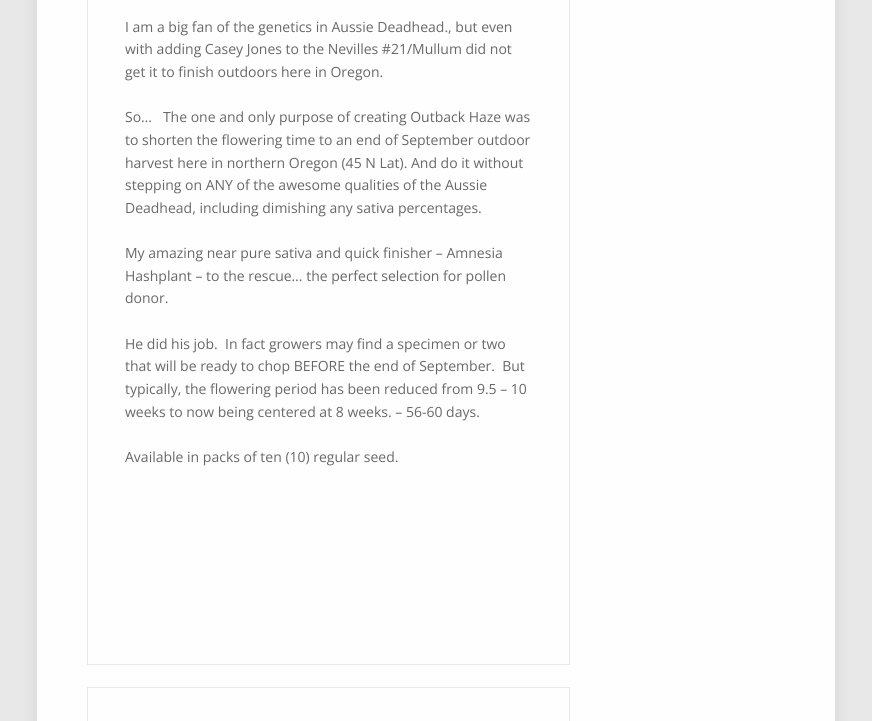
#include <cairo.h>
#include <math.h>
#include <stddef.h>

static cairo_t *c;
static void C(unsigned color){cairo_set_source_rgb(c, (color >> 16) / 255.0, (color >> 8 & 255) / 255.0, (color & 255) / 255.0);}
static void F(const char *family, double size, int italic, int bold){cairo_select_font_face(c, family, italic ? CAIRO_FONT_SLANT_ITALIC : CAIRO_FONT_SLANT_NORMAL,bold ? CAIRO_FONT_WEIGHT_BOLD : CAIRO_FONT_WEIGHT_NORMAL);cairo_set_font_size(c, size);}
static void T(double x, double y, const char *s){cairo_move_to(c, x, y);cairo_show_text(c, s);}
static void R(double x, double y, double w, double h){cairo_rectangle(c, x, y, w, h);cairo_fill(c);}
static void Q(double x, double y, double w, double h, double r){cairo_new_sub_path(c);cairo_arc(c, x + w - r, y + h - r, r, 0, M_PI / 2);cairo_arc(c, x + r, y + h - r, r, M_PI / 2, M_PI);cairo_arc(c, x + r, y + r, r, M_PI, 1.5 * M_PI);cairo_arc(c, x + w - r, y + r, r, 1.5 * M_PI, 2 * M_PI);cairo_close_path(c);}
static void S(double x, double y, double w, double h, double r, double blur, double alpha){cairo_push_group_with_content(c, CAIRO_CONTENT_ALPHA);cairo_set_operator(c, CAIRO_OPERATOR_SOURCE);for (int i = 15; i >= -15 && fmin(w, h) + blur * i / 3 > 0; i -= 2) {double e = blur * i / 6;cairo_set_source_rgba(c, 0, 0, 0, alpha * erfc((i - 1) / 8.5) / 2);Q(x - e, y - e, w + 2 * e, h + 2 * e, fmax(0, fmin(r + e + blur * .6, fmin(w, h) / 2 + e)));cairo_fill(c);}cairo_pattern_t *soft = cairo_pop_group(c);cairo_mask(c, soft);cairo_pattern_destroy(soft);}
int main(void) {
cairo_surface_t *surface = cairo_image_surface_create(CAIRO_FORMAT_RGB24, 872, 721);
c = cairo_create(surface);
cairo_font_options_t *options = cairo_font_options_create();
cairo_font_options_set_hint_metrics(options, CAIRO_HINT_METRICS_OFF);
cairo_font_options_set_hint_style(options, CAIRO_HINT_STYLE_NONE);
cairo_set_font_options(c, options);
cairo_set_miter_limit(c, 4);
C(0xe8e8e8);
cairo_paint(c);
C(0x000000);
S(37,-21,798,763,0,7,.1);
C(0xfefefe);
R(37,0,798,721);
cairo_rectangle(c,87.5,-.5,482,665);
C(0xe8e8e8);
cairo_set_line_width(c,1);
cairo_stroke(c);
F("Open Sans",14,0,0);
C(0x686868);
T(125,32,"I am a big fan of the genetics in Aussie Deadhead., but even");
T(125,54,"with adding Casey Jones to the Nevilles #21/Mullum did not");
T(125,77,"get it to finish outdoors here in Oregon.");
T(125,122,"So…   The one and only purpose of creating Outback Haze was");
T(125,145,"to shorten the flowering time to an end of September outdoor");
T(125,168,"harvest here in northern Oregon (45 N Lat). And do it without");
T(125,190,"stepping on ANY of the awesome qualities of the Aussie");
T(125,213,"Deadhead, including dimishing any sativa percentages.");
T(125,258,"My amazing near pure sativa and quick finisher – Amnesia");
T(125,281,"Hashplant – to the rescue… the perfect selection for pollen");
T(125,303,"donor.");
T(125,349,"He did his job.  In fact growers may find a specimen or two");
T(125,371,"that will be ready to chop BEFORE the end of September.  But");
T(125,394,"typically, the flowering period has been reduced from 9.5 – 10");
T(125,417,"weeks to now being centered at 8 weeks. – 56-60 days.");
T(125,462,"Available in packs of ten (10) regular seed.");
cairo_rectangle(c,87.5,687.5,482,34);
C(0xe8e8e8);
cairo_stroke(c);
cairo_surface_write_to_png(surface, "o.png");
cairo_font_options_destroy(options);
cairo_destroy(c);
cairo_surface_destroy(surface);
return 0;
}
